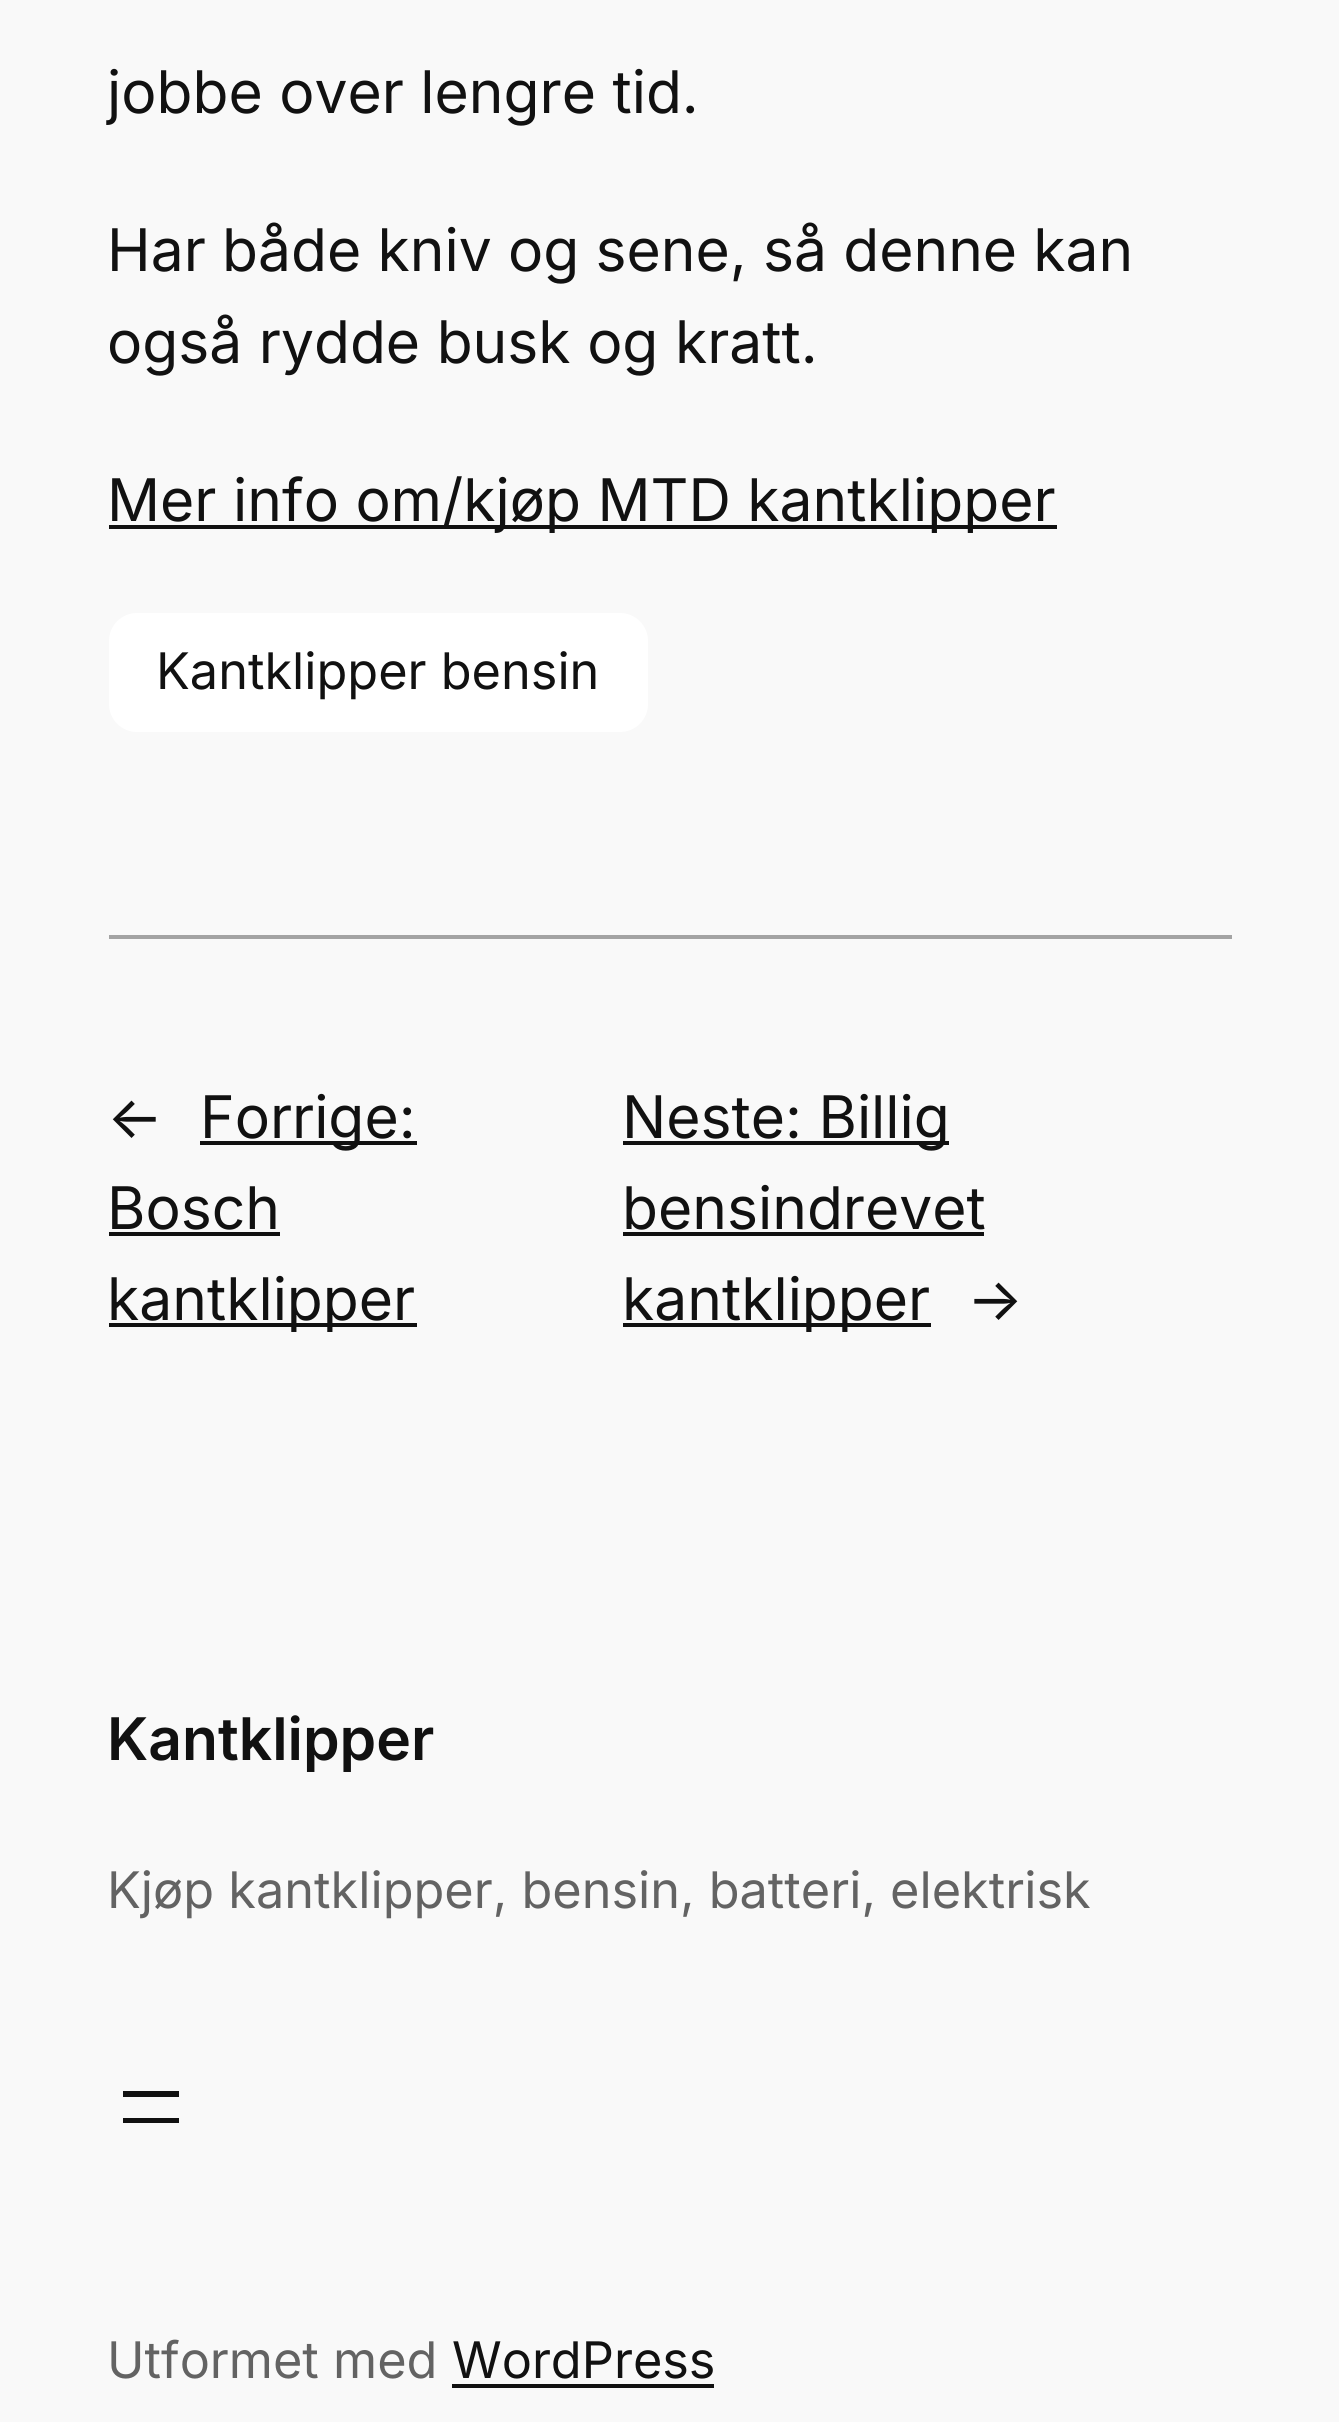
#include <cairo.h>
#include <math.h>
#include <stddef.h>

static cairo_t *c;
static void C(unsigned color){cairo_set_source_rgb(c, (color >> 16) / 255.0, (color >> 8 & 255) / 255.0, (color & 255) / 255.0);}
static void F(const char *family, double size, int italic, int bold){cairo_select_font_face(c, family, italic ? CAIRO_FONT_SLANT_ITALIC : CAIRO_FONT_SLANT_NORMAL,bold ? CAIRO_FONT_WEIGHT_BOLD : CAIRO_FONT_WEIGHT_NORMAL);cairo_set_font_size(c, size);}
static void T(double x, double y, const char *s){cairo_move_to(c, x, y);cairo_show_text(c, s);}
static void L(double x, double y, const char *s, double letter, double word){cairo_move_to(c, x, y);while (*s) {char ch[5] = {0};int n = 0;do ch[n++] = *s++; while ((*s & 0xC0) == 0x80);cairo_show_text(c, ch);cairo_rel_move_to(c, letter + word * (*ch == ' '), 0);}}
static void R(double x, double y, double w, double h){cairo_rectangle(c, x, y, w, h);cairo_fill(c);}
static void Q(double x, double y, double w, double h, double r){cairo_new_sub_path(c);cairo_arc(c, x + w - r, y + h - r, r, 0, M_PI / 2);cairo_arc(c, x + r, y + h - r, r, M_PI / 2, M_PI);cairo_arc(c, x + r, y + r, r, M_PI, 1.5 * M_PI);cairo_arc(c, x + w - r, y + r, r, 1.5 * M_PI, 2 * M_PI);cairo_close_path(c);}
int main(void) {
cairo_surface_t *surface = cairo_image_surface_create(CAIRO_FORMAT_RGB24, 1339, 2422);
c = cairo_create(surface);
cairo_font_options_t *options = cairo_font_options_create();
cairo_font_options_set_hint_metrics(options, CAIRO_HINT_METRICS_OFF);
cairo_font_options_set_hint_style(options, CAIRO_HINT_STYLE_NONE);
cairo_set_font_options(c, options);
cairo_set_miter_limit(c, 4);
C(0xf9f9f9);
cairo_paint(c);
F("Inter",58.75,0,0);
C(0x111111);
T(107,113,"jobbe over lengre tid.");
L(107,271,"Har både kniv og sene, så denne kan",0,-.25);
T(107,363,"også rydde busk og kratt.");
R(109,525,948,4);
T(107,521,"Mer info om/kjøp MTD kantklipper");
C(0xffffff);
Q(109,613,539,119,28);
cairo_fill(c);
F("Inter",50.4,0,0);
C(0x111111);
T(156,689,"Kantklipper bensin");
C(0xa4a4a4);
R(109,935,1123,4);
F("Inter",58.75,0,0);
C(0x111111);
T(107,1138,"←");
R(200,1141,217,4);
T(200,1138,"Forrige:");
T(107,1229,"Bosch");
R(109,1232,171,4);
R(109,1323,308,4);
T(107,1320,"kantklipper");
R(623,1141,326,4);
T(622,1138,"Neste: Billig");
T(622,1229,"bensindrevet");
R(623,1232,361,4);
R(623,1323,308,4);
T(622,1320,"kantklipper");
T(967,1320,"→");
F("Inter SemiBold",58.75,0,0);
T(107,1760,"Kantklipper");
F("Inter",50.4,0,0);
C(0x636363);
T(107,1908,"Kjøp kantklipper, bensin, batteri, elektrisk");
C(0x111111);
R(123,2091,56,6);
R(123,2118,56,5);
C(0x636363);
T(107,2378,"Utformet med");
C(0x111111);
T(452,2378,"WordPress");
R(452,2384,262,4);
cairo_surface_write_to_png(surface, "o.png");
cairo_font_options_destroy(options);
cairo_destroy(c);
cairo_surface_destroy(surface);
return 0;
}
